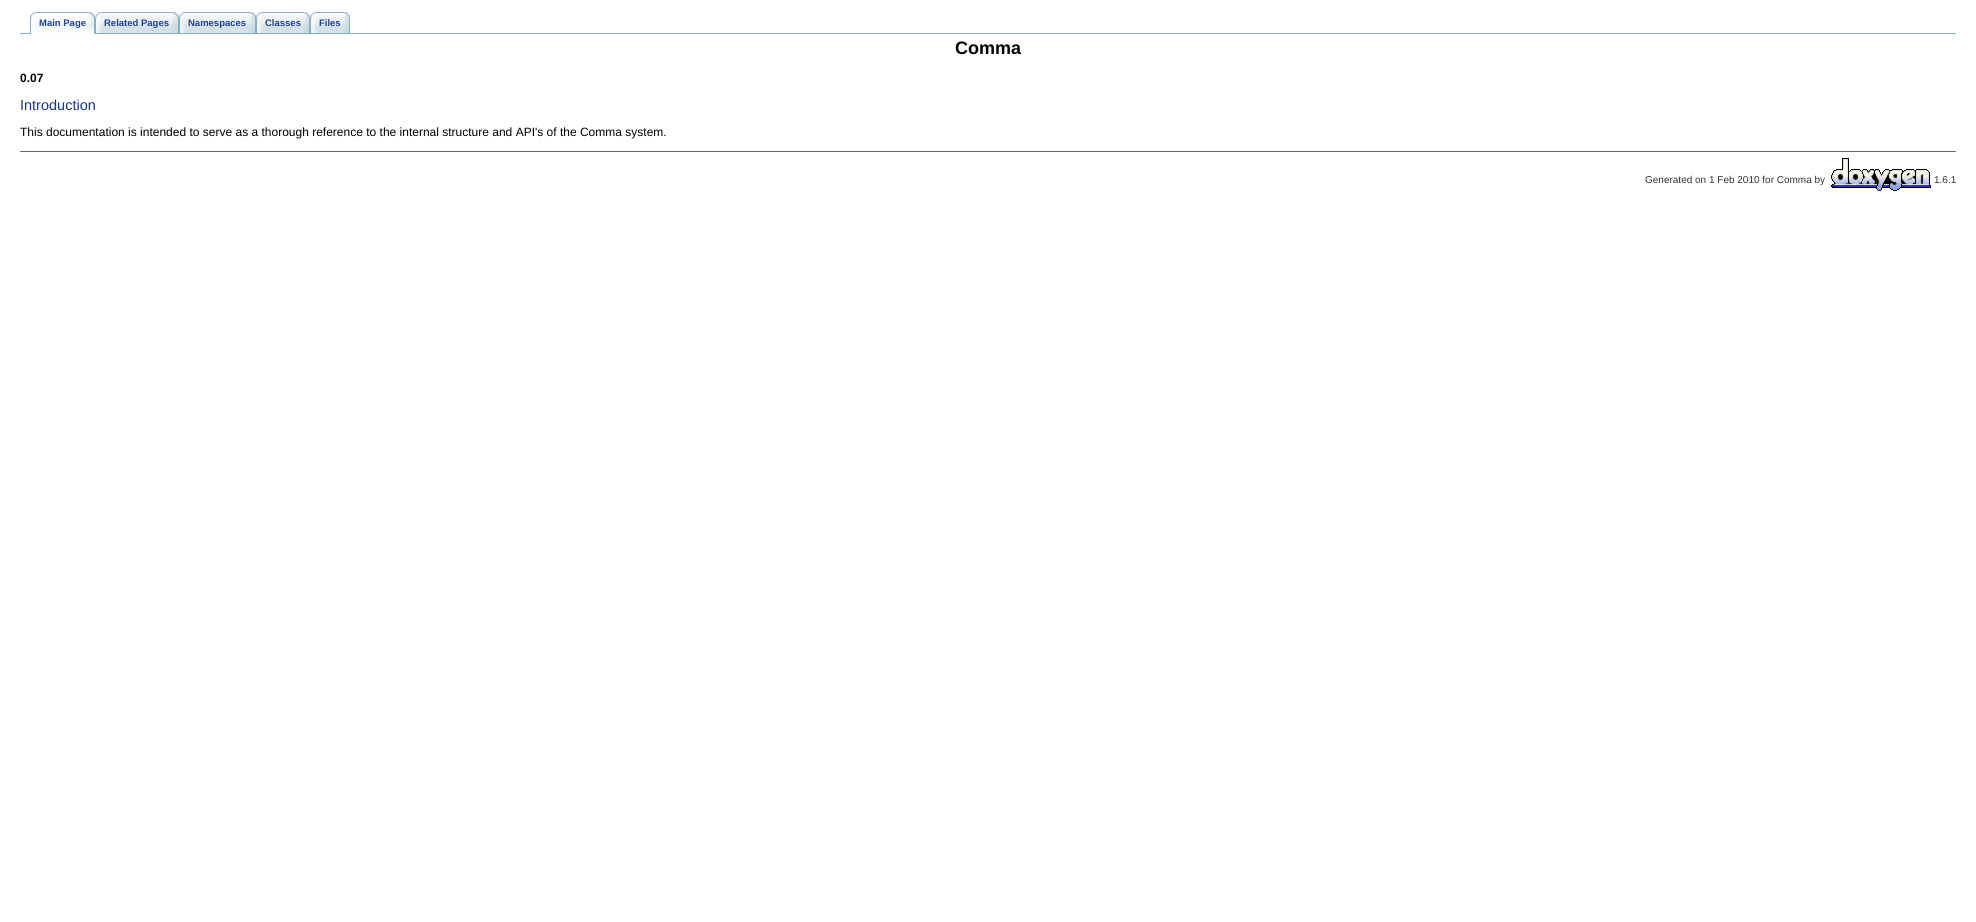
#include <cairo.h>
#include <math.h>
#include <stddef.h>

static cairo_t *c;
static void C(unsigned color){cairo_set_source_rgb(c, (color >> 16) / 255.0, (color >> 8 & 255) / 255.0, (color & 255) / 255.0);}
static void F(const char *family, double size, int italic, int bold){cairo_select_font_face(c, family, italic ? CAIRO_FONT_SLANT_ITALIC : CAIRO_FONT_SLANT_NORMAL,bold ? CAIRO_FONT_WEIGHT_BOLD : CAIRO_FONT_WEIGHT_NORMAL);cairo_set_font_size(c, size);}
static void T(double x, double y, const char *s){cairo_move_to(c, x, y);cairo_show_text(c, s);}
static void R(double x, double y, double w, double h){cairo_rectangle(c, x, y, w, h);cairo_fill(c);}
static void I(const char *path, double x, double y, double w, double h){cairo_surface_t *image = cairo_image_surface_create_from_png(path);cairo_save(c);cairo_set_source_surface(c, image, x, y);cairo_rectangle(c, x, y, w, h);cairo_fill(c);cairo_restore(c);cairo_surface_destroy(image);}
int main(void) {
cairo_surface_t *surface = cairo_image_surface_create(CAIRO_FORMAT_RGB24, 1976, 922);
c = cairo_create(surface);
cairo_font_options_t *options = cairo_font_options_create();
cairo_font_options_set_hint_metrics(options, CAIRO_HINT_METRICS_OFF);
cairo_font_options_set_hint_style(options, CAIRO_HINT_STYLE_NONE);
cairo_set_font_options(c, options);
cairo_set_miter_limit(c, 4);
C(0xffffff);
cairo_paint(c);
C(0x84b0c7);
R(20,33,1936,1);
I("1.png",37,12,58,22);
I("2.png",30,12,7,22);
F("Liberation Sans",9.5,0,1);
C(0x1a419d);
T(39,26,"Main Page");
I("3.png",104,12,75,21);
I("4.png",95,12,9,21);
T(104,26,"Related Pages");
I("5.png",188,12,68,21);
I("4.png",179,12,9,21);
T(188,26,"Namespaces");
I("6.png",265,12,45,21);
I("4.png",256,12,9,21);
T(265,26,"Classes");
I("7.png",319,12,31,21);
I("4.png",310,12,9,21);
T(319,26,"Files");
F("Liberation Sans",18,0,1);
C(0x000000);
T(955,54,"Comma");
F("Liberation Sans",12,0,1);
T(20,82,"0.07");
F("Liberation Sans",14.5,0,0);
C(0x153788);
T(20,110,"Introduction");
F("Liberation Sans",12,0,0);
C(0x000000);
T(20,136,"This documentation is intended to serve as a thorough reference to the internal structure and API's of the Comma system.");
C(0x666666);
R(20,151,1936,1);
F("Liberation Sans",10,0,0);
C(0x333333);
T(1645,183,"Generated on 1 Feb 2010 for Comma by");
I("8.png",1831,158,100,33);
T(1934,183,"1.6.1");
cairo_surface_write_to_png(surface, "o.png");
cairo_font_options_destroy(options);
cairo_destroy(c);
cairo_surface_destroy(surface);
return 0;
}
